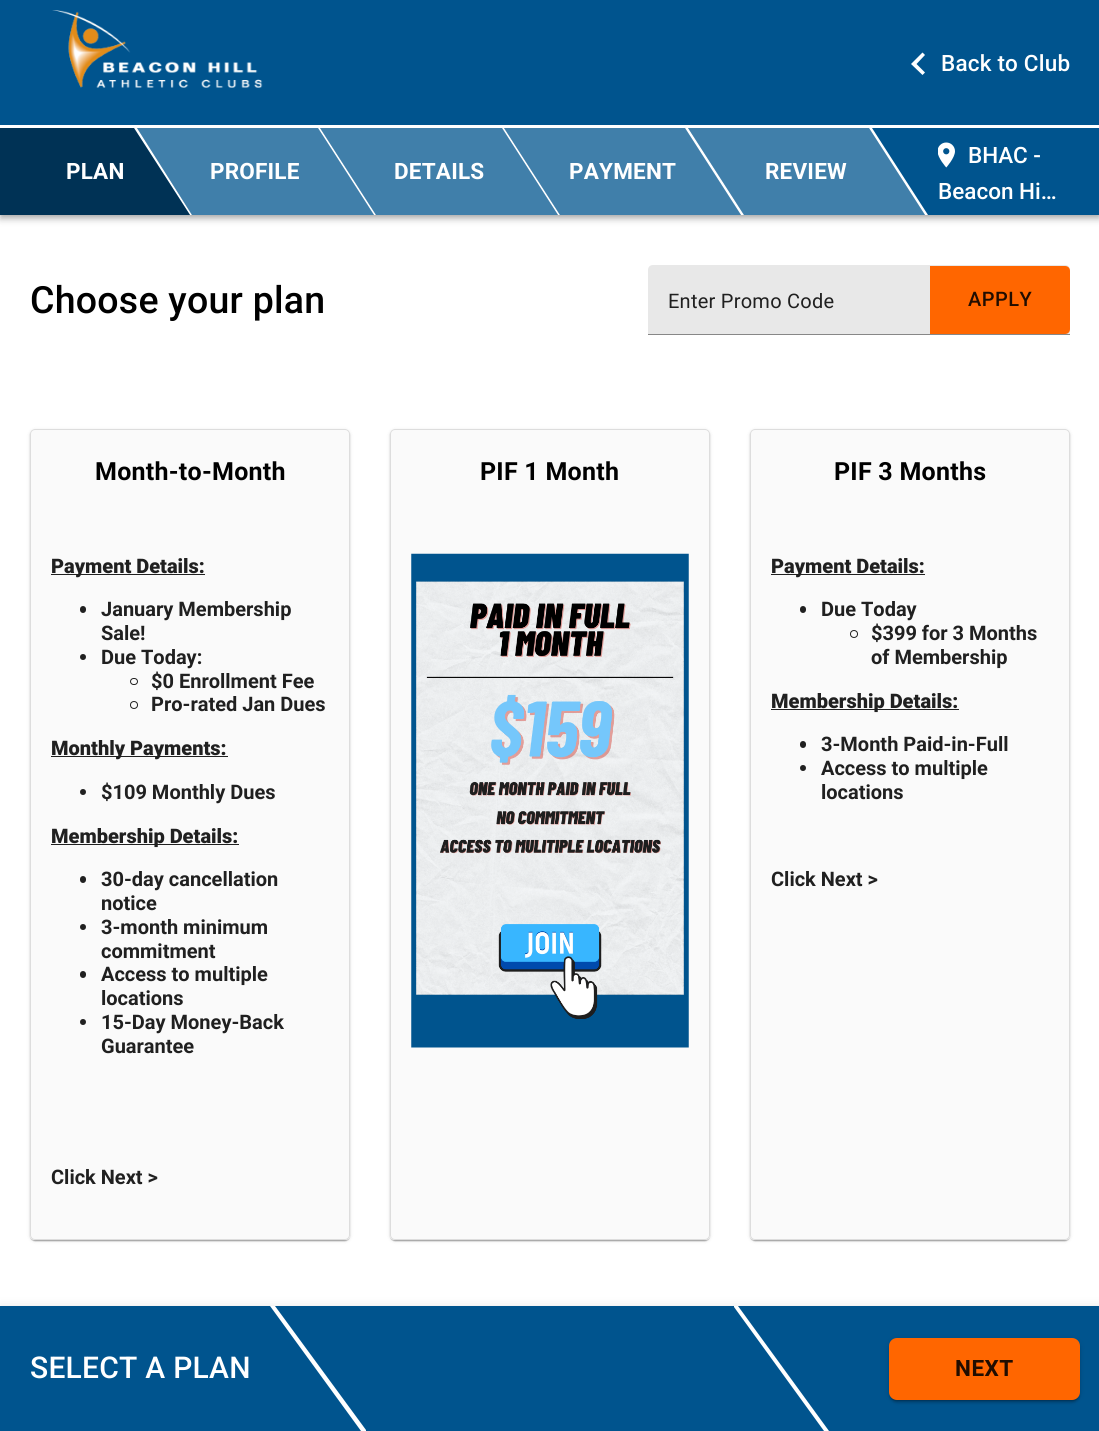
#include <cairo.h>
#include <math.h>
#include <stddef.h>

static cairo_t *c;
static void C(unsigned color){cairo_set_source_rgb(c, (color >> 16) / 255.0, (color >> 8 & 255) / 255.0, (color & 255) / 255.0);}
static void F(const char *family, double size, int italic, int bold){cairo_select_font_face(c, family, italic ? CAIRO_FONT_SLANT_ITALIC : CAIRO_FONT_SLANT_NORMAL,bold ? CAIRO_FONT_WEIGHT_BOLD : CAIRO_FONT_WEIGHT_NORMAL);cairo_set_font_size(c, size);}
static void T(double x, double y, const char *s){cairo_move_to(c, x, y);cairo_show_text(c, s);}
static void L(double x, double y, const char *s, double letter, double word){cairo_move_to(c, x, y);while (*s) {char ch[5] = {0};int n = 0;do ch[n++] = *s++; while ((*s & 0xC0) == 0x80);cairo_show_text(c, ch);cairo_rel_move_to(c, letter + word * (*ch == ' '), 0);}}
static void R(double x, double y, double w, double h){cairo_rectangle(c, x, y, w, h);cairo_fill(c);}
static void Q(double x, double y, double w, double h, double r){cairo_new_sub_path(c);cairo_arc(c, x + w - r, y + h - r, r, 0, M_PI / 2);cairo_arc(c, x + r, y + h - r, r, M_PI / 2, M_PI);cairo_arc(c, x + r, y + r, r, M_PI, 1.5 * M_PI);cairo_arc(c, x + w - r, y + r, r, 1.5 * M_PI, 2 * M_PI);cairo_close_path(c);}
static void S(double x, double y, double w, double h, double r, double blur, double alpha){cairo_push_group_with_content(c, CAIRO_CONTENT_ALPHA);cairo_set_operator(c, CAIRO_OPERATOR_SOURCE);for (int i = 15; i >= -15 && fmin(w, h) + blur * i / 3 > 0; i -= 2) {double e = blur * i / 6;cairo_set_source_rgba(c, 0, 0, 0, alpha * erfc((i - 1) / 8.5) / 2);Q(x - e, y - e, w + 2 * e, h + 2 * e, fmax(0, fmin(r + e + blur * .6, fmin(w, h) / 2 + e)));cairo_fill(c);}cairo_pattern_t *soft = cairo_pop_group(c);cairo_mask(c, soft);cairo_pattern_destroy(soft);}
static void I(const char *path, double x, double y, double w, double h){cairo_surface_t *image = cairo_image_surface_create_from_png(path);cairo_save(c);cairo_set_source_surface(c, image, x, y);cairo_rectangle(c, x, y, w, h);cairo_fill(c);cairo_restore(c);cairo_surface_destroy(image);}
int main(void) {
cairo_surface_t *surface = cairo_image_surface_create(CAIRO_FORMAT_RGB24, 1099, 1431);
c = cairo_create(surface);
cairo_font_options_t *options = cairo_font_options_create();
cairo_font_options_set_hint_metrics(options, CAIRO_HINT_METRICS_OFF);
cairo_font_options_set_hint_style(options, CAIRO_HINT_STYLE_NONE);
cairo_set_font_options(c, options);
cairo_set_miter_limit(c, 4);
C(0xffffff);
cairo_paint(c);
C(0x000000);
S(0,1,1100,215,0,6,.12);
S(0,5,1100,215,0,3,.14);
S(1,4,1098,212,0,2.5,.2);
C(0x00548e);
R(0,0,1099,215);
I("1.png",52,10,211,78);
C(0xffffff);
cairo_new_path(c);
cairo_move_to(c,925,55);
cairo_line_to(c,922.5,52.5);
cairo_line_to(c,911,64);
cairo_line_to(c,922.5,75);
cairo_line_to(c,925,72.5);
cairo_line_to(c,916.5,64);
cairo_close_path(c);
cairo_fill(c);
F("Roboto Medium",22.5,0,0);
L(941,71,"Back to Club",.2,0);
R(0,125,1099,3);
cairo_new_path(c);
cairo_move_to(c,0,128);
cairo_line_to(c,0,215);
cairo_line_to(c,928,215);
cairo_line_to(c,872,128);
cairo_close_path(c);
cairo_fill(c);
C(0x00548e);
cairo_new_path(c);
cairo_move_to(c,0,128);
cairo_line_to(c,0,215);
cairo_line_to(c,190,215);
cairo_line_to(c,134,128);
cairo_close_path(c);
cairo_fill(c);
cairo_set_source_rgba(c,0,0,0,0.4);
cairo_new_path(c);
cairo_move_to(c,0,128);
cairo_line_to(c,0,215);
cairo_line_to(c,190,215);
cairo_line_to(c,134,128);
cairo_close_path(c);
cairo_fill(c);
F("Roboto",22.5,0,1);
C(0xffffff);
L(66,179,"PLAN",.2,0);
C(0x00548e);
cairo_new_path(c);
cairo_move_to(c,192,215);
cairo_line_to(c,374,215);
cairo_line_to(c,318,128);
cairo_line_to(c,137,128);
cairo_close_path(c);
cairo_fill(c);
cairo_set_source_rgba(c,1,1,1,0.25);
cairo_new_path(c);
cairo_move_to(c,192,215);
cairo_line_to(c,374,215);
cairo_line_to(c,318,128);
cairo_line_to(c,137,128);
cairo_close_path(c);
cairo_fill(c);
C(0xffffff);
L(210,179,"PROFILE",.2,0);
C(0x00548e);
cairo_new_path(c);
cairo_move_to(c,376,215);
cairo_line_to(c,558,215);
cairo_line_to(c,502,128);
cairo_line_to(c,320,128);
cairo_close_path(c);
cairo_fill(c);
cairo_set_source_rgba(c,1,1,1,0.25);
cairo_new_path(c);
cairo_move_to(c,376,215);
cairo_line_to(c,558,215);
cairo_line_to(c,502,128);
cairo_line_to(c,320,128);
cairo_close_path(c);
cairo_fill(c);
C(0xffffff);
L(394,179,"DETAILS",.2,0);
C(0x00548e);
cairo_new_path(c);
cairo_move_to(c,560,215);
cairo_line_to(c,741,215);
cairo_line_to(c,685,128);
cairo_line_to(c,504,128);
cairo_close_path(c);
cairo_fill(c);
cairo_set_source_rgba(c,1,1,1,0.25);
cairo_new_path(c);
cairo_move_to(c,560,215);
cairo_line_to(c,741,215);
cairo_line_to(c,685,128);
cairo_line_to(c,504,128);
cairo_close_path(c);
cairo_fill(c);
C(0xffffff);
L(569,179,"PAYMENT",.2,0);
C(0x00548e);
cairo_new_path(c);
cairo_move_to(c,688,128);
cairo_line_to(c,744,215);
cairo_line_to(c,925,215);
cairo_line_to(c,869,128);
cairo_close_path(c);
cairo_fill(c);
cairo_set_source_rgba(c,1,1,1,0.25);
cairo_new_path(c);
cairo_move_to(c,688,128);
cairo_line_to(c,744,215);
cairo_line_to(c,925,215);
cairo_line_to(c,869,128);
cairo_close_path(c);
cairo_fill(c);
C(0xffffff);
L(765,179,"REVIEW",.2,0);
I("2.png",938,142,17,26);
F("Roboto Medium",22.5,0,0);
T(968,163,"BHAC -");
T(938,199,"Beacon Hi…");
F("Roboto Medium",37.5,0,0);
C(0x000000);
L(30,313,"Choose your plan",.25,0);
C(0xe8e8e8);
cairo_new_path(c);
cairo_move_to(c,653,265);
cairo_line_to(c,1065,265);
cairo_curve_to(c,1068,265,1070,267,1070,270);
cairo_line_to(c,1070,335);
cairo_line_to(c,648,335);
cairo_line_to(c,648,270);
cairo_curve_to(c,648,267,650,265,653,265);
cairo_close_path(c);
cairo_fill(c);
F("Roboto",20,0,0);
C(0x202020);
L(668,308,"Enter Promo Code",.25,0);
C(0xff6600);
cairo_new_path(c);
cairo_move_to(c,930,266);
cairo_line_to(c,1065,266);
cairo_curve_to(c,1068,266,1070,268,1070,271);
cairo_line_to(c,1070,329);
cairo_curve_to(c,1070,332,1068,334,1065,334);
cairo_line_to(c,930,334);
cairo_close_path(c);
cairo_fill(c);
F("Roboto Medium",20,0,0);
C(0x210d00);
L(968,306,"APPLY",.5,0);
C(0x878787);
R(648,334,422,1);
cairo_save(c);
cairo_set_fill_rule(c,CAIRO_FILL_RULE_EVEN_ODD);
cairo_new_path(c);
cairo_move_to(c,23,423);
cairo_line_to(c,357,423);
cairo_line_to(c,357,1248);
cairo_line_to(c,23,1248);
cairo_close_path(c);
cairo_move_to(c,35,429);
cairo_line_to(c,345,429);
cairo_curve_to(c,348,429,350,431,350,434);
cairo_line_to(c,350,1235);
cairo_curve_to(c,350,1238,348,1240,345,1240);
cairo_line_to(c,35,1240);
cairo_curve_to(c,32,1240,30,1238,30,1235);
cairo_line_to(c,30,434);
cairo_curve_to(c,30,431,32,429,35,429);
cairo_close_path(c);
cairo_clip(c);
C(0x000000);
S(30,430,320,811,5,2,.12);
cairo_restore(c);
cairo_save(c);
cairo_set_fill_rule(c,CAIRO_FILL_RULE_EVEN_ODD);
cairo_new_path(c);
cairo_move_to(c,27,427);
cairo_line_to(c,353,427);
cairo_line_to(c,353,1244);
cairo_line_to(c,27,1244);
cairo_close_path(c);
cairo_move_to(c,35,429);
cairo_line_to(c,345,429);
cairo_curve_to(c,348,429,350,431,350,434);
cairo_line_to(c,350,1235);
cairo_curve_to(c,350,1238,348,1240,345,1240);
cairo_line_to(c,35,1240);
cairo_curve_to(c,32,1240,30,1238,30,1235);
cairo_line_to(c,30,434);
cairo_curve_to(c,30,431,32,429,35,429);
cairo_close_path(c);
cairo_clip(c);
C(0x000000);
S(30,430,320,811,5,.5,.14);
cairo_restore(c);
cairo_save(c);
cairo_set_fill_rule(c,CAIRO_FILL_RULE_EVEN_ODD);
cairo_new_path(c);
cairo_move_to(c,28,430);
cairo_line_to(c,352,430);
cairo_line_to(c,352,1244);
cairo_line_to(c,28,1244);
cairo_close_path(c);
cairo_move_to(c,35,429);
cairo_line_to(c,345,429);
cairo_curve_to(c,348,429,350,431,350,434);
cairo_line_to(c,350,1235);
cairo_curve_to(c,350,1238,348,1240,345,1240);
cairo_line_to(c,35,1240);
cairo_curve_to(c,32,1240,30,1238,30,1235);
cairo_line_to(c,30,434);
cairo_curve_to(c,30,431,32,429,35,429);
cairo_close_path(c);
cairo_clip(c);
C(0x000000);
S(31,433,318,808,4,.5,.2);
cairo_restore(c);
cairo_set_source_rgba(c,0.867,0.867,0.867,0.15);
Q(30.5,429.5,319,810,4.5);
cairo_fill_preserve(c);
C(0xdddddd);
cairo_set_line_width(c,1);
cairo_stroke(c);
F("Roboto",25,0,1);
C(0x000000);
L(95,480,"Month-to-Month",.25,0);
C(0x202020);
R(51,574,154,1);
F("Roboto Black",20,0,0);
T(51,573,"Payment Details:");
Q(80,606,6,7,3);
cairo_fill(c);
F("Roboto",20,0,1);
T(101,616,"January Membership");
T(101,640,"Sale!");
cairo_new_path(c);
cairo_arc(c,83,657,3,0,2 * M_PI);
cairo_fill(c);
T(101,664,"Due Today:");
Q(130.5,678.5,7,6,3);
cairo_stroke(c);
T(151,688,"$0 Enrollment Fee");
cairo_new_path(c);
cairo_arc(c,134,705,3.5,0,2 * M_PI);
cairo_stroke(c);
T(151,711,"Pro-rated Jan Dues");
R(51,756,177,1);
F("Roboto Black",20,0,0);
T(51,755,"Monthly Payments:");
cairo_new_path(c);
cairo_arc(c,83,792,3,0,2 * M_PI);
cairo_fill(c);
F("Roboto",20,0,1);
T(101,799,"$109 Monthly Dues");
R(51,844,188,1);
F("Roboto Black",20,0,0);
T(51,843,"Membership Details:");
Q(80,876,6,7,3);
cairo_fill(c);
F("Roboto",20,0,1);
T(101,886,"30-day cancellation");
T(101,910,"notice");
cairo_new_path(c);
cairo_arc(c,83,927,3,0,2 * M_PI);
cairo_fill(c);
T(101,934,"3-month minimum");
T(101,958,"commitment");
Q(80,971,6,7,3);
cairo_fill(c);
T(101,981,"Access to multiple");
T(101,1005,"locations");
cairo_new_path(c);
cairo_arc(c,83,1022,3,0,2 * M_PI);
cairo_fill(c);
T(101,1029,"15-Day Money-Back");
T(101,1053,"Guarantee");
T(51,1184,"Click Next >");
cairo_save(c);
cairo_set_fill_rule(c,CAIRO_FILL_RULE_EVEN_ODD);
cairo_new_path(c);
cairo_move_to(c,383,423);
cairo_line_to(c,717,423);
cairo_line_to(c,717,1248);
cairo_line_to(c,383,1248);
cairo_close_path(c);
cairo_move_to(c,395,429);
cairo_line_to(c,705,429);
cairo_curve_to(c,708,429,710,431,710,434);
cairo_line_to(c,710,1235);
cairo_curve_to(c,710,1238,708,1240,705,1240);
cairo_line_to(c,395,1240);
cairo_curve_to(c,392,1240,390,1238,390,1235);
cairo_line_to(c,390,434);
cairo_curve_to(c,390,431,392,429,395,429);
cairo_close_path(c);
cairo_clip(c);
C(0x000000);
S(390,430,320,811,5,2,.12);
cairo_restore(c);
cairo_save(c);
cairo_set_fill_rule(c,CAIRO_FILL_RULE_EVEN_ODD);
cairo_new_path(c);
cairo_move_to(c,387,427);
cairo_line_to(c,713,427);
cairo_line_to(c,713,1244);
cairo_line_to(c,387,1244);
cairo_close_path(c);
cairo_move_to(c,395,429);
cairo_line_to(c,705,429);
cairo_curve_to(c,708,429,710,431,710,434);
cairo_line_to(c,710,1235);
cairo_curve_to(c,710,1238,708,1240,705,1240);
cairo_line_to(c,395,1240);
cairo_curve_to(c,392,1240,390,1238,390,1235);
cairo_line_to(c,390,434);
cairo_curve_to(c,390,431,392,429,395,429);
cairo_close_path(c);
cairo_clip(c);
C(0x000000);
S(390,430,320,811,5,.5,.14);
cairo_restore(c);
cairo_save(c);
cairo_set_fill_rule(c,CAIRO_FILL_RULE_EVEN_ODD);
cairo_new_path(c);
cairo_move_to(c,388,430);
cairo_line_to(c,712,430);
cairo_line_to(c,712,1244);
cairo_line_to(c,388,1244);
cairo_close_path(c);
cairo_move_to(c,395,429);
cairo_line_to(c,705,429);
cairo_curve_to(c,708,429,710,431,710,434);
cairo_line_to(c,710,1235);
cairo_curve_to(c,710,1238,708,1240,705,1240);
cairo_line_to(c,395,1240);
cairo_curve_to(c,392,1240,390,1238,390,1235);
cairo_line_to(c,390,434);
cairo_curve_to(c,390,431,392,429,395,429);
cairo_close_path(c);
cairo_clip(c);
C(0x000000);
S(391,433,318,808,4,.5,.2);
cairo_restore(c);
cairo_set_source_rgba(c,0.867,0.867,0.867,0.15);
Q(390.5,429.5,319,810,4.5);
cairo_fill_preserve(c);
C(0xdddddd);
cairo_stroke(c);
F("Roboto",25,0,1);
C(0x000000);
L(480,480,"PIF 1 Month",.25,0);
I("3.png",411,553,278,495);
cairo_save(c);
cairo_set_fill_rule(c,CAIRO_FILL_RULE_EVEN_ODD);
cairo_new_path(c);
cairo_move_to(c,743,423);
cairo_line_to(c,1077,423);
cairo_line_to(c,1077,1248);
cairo_line_to(c,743,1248);
cairo_close_path(c);
cairo_move_to(c,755,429);
cairo_line_to(c,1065,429);
cairo_curve_to(c,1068,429,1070,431,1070,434);
cairo_line_to(c,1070,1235);
cairo_curve_to(c,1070,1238,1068,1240,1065,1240);
cairo_line_to(c,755,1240);
cairo_curve_to(c,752,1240,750,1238,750,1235);
cairo_line_to(c,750,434);
cairo_curve_to(c,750,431,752,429,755,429);
cairo_close_path(c);
cairo_clip(c);
C(0x000000);
S(750,430,320,811,5,2,.12);
cairo_restore(c);
cairo_save(c);
cairo_set_fill_rule(c,CAIRO_FILL_RULE_EVEN_ODD);
cairo_new_path(c);
cairo_move_to(c,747,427);
cairo_line_to(c,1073,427);
cairo_line_to(c,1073,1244);
cairo_line_to(c,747,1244);
cairo_close_path(c);
cairo_move_to(c,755,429);
cairo_line_to(c,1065,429);
cairo_curve_to(c,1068,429,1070,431,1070,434);
cairo_line_to(c,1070,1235);
cairo_curve_to(c,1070,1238,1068,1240,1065,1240);
cairo_line_to(c,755,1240);
cairo_curve_to(c,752,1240,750,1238,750,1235);
cairo_line_to(c,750,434);
cairo_curve_to(c,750,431,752,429,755,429);
cairo_close_path(c);
cairo_clip(c);
C(0x000000);
S(750,430,320,811,5,.5,.14);
cairo_restore(c);
cairo_save(c);
cairo_set_fill_rule(c,CAIRO_FILL_RULE_EVEN_ODD);
cairo_new_path(c);
cairo_move_to(c,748,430);
cairo_line_to(c,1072,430);
cairo_line_to(c,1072,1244);
cairo_line_to(c,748,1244);
cairo_close_path(c);
cairo_move_to(c,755,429);
cairo_line_to(c,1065,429);
cairo_curve_to(c,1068,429,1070,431,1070,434);
cairo_line_to(c,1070,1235);
cairo_curve_to(c,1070,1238,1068,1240,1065,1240);
cairo_line_to(c,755,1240);
cairo_curve_to(c,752,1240,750,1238,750,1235);
cairo_line_to(c,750,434);
cairo_curve_to(c,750,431,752,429,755,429);
cairo_close_path(c);
cairo_clip(c);
C(0x000000);
S(751,433,318,808,4,.5,.2);
cairo_restore(c);
cairo_set_source_rgba(c,0.867,0.867,0.867,0.15);
Q(750.5,429.5,319,810,4.5);
cairo_fill_preserve(c);
C(0xdddddd);
cairo_stroke(c);
C(0x000000);
L(834,480,"PIF 3 Months",.25,0);
C(0x202020);
R(771,574,154,1);
F("Roboto Black",20,0,0);
T(771,573,"Payment Details:");
Q(800,606,6,7,3);
cairo_fill(c);
F("Roboto",20,0,1);
T(821,616,"Due Today");
cairo_new_path(c);
cairo_arc(c,854,634,3.5,0,2 * M_PI);
cairo_stroke(c);
T(871,640,"$399 for 3 Months");
T(871,664,"of Membership");
R(771,709,188,1);
F("Roboto Black",20,0,0);
T(771,708,"Membership Details:");
Q(800,741,6,7,3);
cairo_fill(c);
F("Roboto",20,0,1);
T(821,751,"3-Month Paid-in-Full");
cairo_new_path(c);
cairo_arc(c,803,768,3,0,2 * M_PI);
cairo_fill(c);
T(821,775,"Access to multiple");
T(821,799,"locations");
T(771,886,"Click Next >");
C(0x000000);
S(0,1308,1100,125,0,6,.12);
C(0x00548e);
R(0,1306,1099,125);
F("Roboto Medium",30,0,0);
C(0xffffff);
L(30,1378,"SELECT A PLAN",.25,0);
cairo_new_path(c);
cairo_move_to(c,270,1306);
cairo_line_to(c,275,1306);
cairo_line_to(c,366,1430);
cairo_line_to(c,366,1431);
cairo_line_to(c,361,1431);
cairo_close_path(c);
cairo_fill(c);
cairo_new_path(c);
cairo_move_to(c,734,1307);
cairo_line_to(c,734,1306);
cairo_line_to(c,738,1306);
cairo_line_to(c,829,1431);
cairo_line_to(c,824,1431);
cairo_close_path(c);
cairo_fill(c);
C(0x000000);
S(889,1339,191,62,8,3,.12);
S(889,1340,191,63,8,1,.14);
S(891,1344,187,57,5,.5,.2);
C(0xff6600);
Q(889,1338,191,62,8);
cairo_fill(c);
F("Roboto",22.5,0,1);
C(0x210d00);
L(955,1376,"NEXT",.5,0);
cairo_surface_write_to_png(surface, "o.png");
cairo_font_options_destroy(options);
cairo_destroy(c);
cairo_surface_destroy(surface);
return 0;
}
